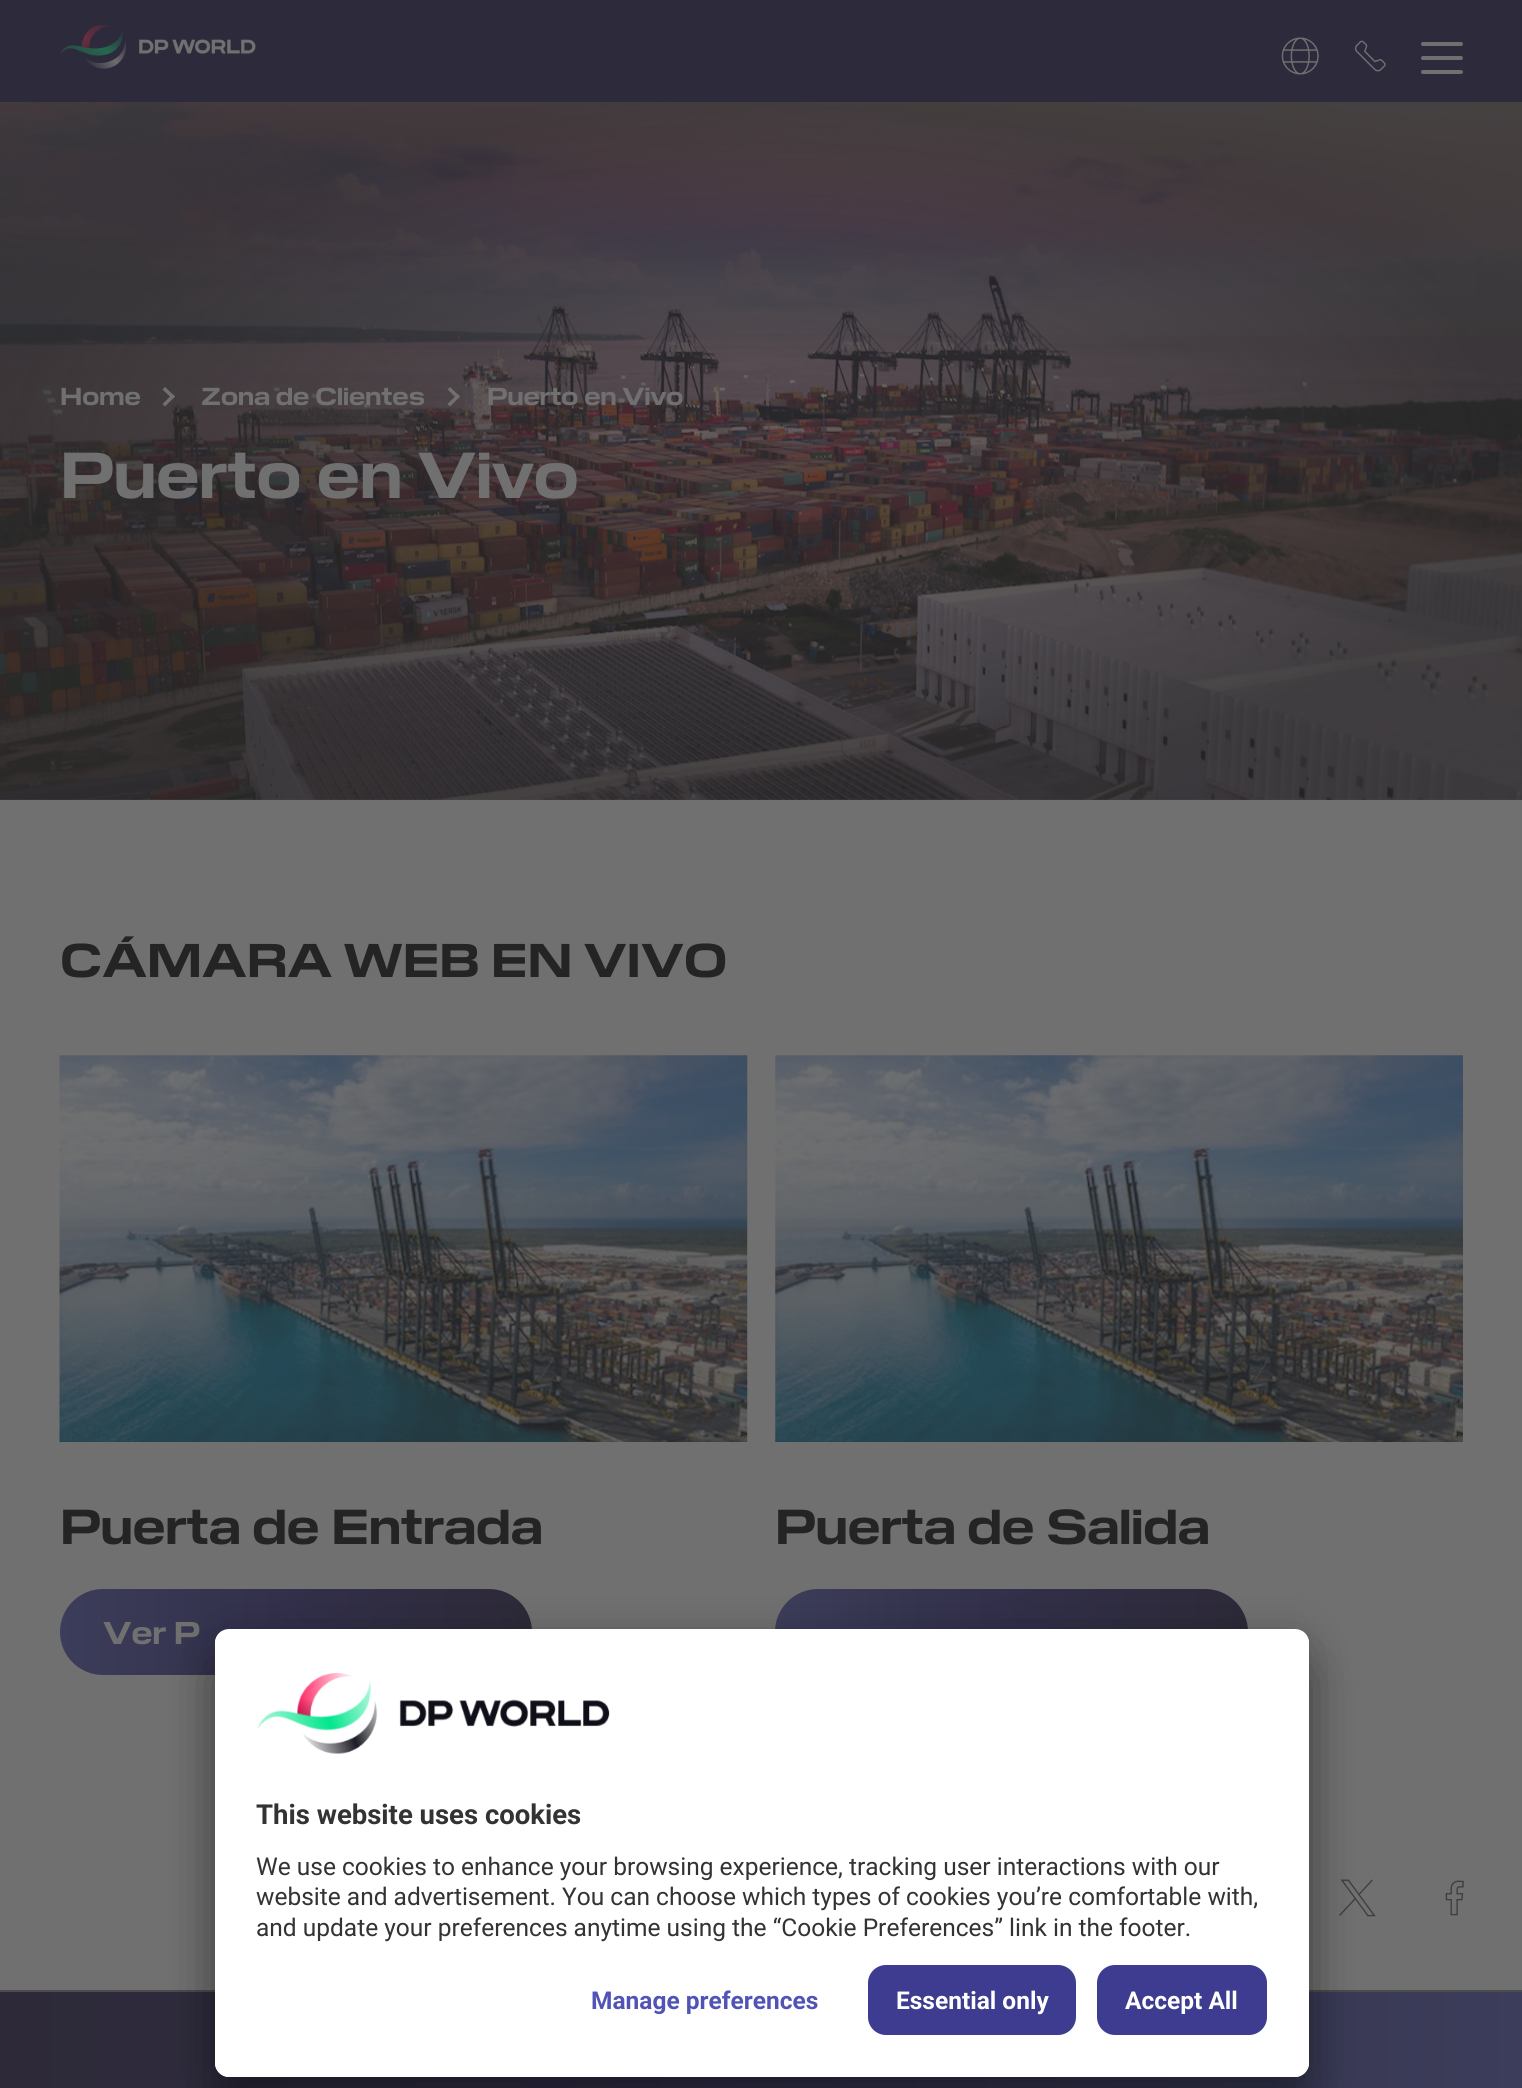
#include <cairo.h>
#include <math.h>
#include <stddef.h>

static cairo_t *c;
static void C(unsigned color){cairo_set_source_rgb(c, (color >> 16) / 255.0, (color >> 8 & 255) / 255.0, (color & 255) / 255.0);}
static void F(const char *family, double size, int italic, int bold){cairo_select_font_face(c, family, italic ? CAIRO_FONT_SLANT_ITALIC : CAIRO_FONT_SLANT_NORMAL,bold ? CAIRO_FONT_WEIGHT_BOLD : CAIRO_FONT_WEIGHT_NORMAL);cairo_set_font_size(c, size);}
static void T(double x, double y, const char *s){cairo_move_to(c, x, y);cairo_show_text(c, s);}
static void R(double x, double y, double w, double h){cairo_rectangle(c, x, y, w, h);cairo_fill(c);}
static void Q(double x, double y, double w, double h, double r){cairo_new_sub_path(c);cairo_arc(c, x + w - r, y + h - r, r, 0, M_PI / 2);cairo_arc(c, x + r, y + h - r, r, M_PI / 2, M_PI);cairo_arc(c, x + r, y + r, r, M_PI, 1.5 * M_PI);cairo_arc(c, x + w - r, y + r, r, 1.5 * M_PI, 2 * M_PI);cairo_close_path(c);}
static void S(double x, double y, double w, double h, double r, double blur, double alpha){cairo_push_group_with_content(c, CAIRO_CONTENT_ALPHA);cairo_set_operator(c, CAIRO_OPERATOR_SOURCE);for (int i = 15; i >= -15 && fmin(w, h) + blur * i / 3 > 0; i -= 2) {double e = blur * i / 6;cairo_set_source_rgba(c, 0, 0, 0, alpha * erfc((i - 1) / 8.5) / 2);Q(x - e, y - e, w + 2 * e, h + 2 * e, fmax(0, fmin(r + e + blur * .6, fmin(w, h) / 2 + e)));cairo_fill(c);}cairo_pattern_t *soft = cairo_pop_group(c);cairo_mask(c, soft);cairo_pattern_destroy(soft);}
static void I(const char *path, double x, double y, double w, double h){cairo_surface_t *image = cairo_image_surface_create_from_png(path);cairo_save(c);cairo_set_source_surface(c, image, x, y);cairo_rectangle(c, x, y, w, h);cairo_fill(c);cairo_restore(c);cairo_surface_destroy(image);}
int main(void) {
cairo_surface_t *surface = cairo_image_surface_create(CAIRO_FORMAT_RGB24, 1522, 2088);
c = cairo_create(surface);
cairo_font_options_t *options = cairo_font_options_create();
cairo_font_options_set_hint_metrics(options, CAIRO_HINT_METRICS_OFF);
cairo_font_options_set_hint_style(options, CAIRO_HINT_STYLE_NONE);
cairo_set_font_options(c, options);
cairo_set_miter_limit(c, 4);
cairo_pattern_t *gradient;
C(0x707070);
cairo_paint(c);
C(0x2d2a3c);
R(0,0,1522,102);
I("1.png",60,25,196,44);
I("2.png",1281,37,38,38);
I("3.png",1354,40,32,32);
C(0x707070);
Q(1421,42,42,4,2);
cairo_fill(c);
Q(1421,56,42,4,2);
cairo_fill(c);
Q(1421,70,42,4,2);
cairo_fill(c);
I("4.png",0,102,1522,698);
gradient = cairo_pattern_create_radial(0,0,0,0,0,1);
cairo_pattern_set_matrix(gradient, &(cairo_matrix_t){1.0 / 761, 0, 0, 1.0 / 350, -1.0 * 761 / 761, -1.0 * 450 / 350});
cairo_pattern_add_color_stop_rgba(gradient,0,0.141,0.141,0.141,0);
cairo_pattern_add_color_stop_rgba(gradient,1,0.141,0.141,0.141,.55);
cairo_set_source(c,gradient);
cairo_pattern_destroy(gradient);
R(0,102,1522,698);
F("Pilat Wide",24.5,0,1);
C(0x707070);
T(60,405,"Home");
cairo_new_path(c);
cairo_move_to(c,162.5,389.5);
cairo_line_to(c,165,387);
cairo_line_to(c,175,396.5);
cairo_line_to(c,172.5,399);
cairo_close_path(c);
cairo_fill(c);
cairo_new_path(c);
cairo_move_to(c,162.5,404);
cairo_line_to(c,172.5,394);
cairo_line_to(c,175,396.5);
cairo_line_to(c,165,406.5);
cairo_close_path(c);
cairo_fill(c);
T(201,405,"Zona de Clientes");
cairo_new_path(c);
cairo_move_to(c,447.5,389.5);
cairo_line_to(c,450,387);
cairo_line_to(c,460,396.5);
cairo_line_to(c,457.5,399);
cairo_close_path(c);
cairo_fill(c);
cairo_new_path(c);
cairo_move_to(c,447.5,404);
cairo_line_to(c,457.5,394);
cairo_line_to(c,460,396.5);
cairo_line_to(c,450,406.5);
cairo_close_path(c);
cairo_fill(c);
T(487,405,"Puerto en Vivo");
F("Pilat Wide",64.75,0,1);
T(60,498,"Puerto en Vivo");
F("Pilat Wide",47.25,0,1);
C(0x242424);
T(60,977,"CÁMARA WEB EN VIVO");
I("5.png",59,1055,689,387);
F("Pilat Wide",49,0,1);
T(60,1544,"Puerta de Entrada");
gradient = cairo_pattern_create_linear(532,1632,60,1632);
cairo_pattern_add_color_stop_rgba(gradient,0,0.176,0.161,0.22,1);
cairo_pattern_add_color_stop_rgba(gradient,.23,0.184,0.173,0.251,1);
cairo_pattern_add_color_stop_rgba(gradient,.54,0.196,0.188,0.294,1);
cairo_pattern_add_color_stop_rgba(gradient,1,0.235,0.239,0.353,1);
cairo_set_source(c,gradient);
cairo_pattern_destroy(gradient);
Q(60,1589,472,86,43);
cairo_fill(c);
F("Pilat Wide",31.5,0,1);
C(0x707070);
T(103,1644,"Ver P");
I("6.png",775,1055,688,387);
F("Pilat Wide",49,0,1);
C(0x242424);
T(775,1544,"Puerta de Salida");
gradient = cairo_pattern_create_linear(1248,1632,775,1632);
cairo_pattern_add_color_stop_rgba(gradient,0,0.176,0.161,0.22,1);
cairo_pattern_add_color_stop_rgba(gradient,.23,0.184,0.173,0.251,1);
cairo_pattern_add_color_stop_rgba(gradient,.54,0.196,0.188,0.294,1);
cairo_pattern_add_color_stop_rgba(gradient,1,0.235,0.239,0.353,1);
cairo_set_source(c,gradient);
cairo_pattern_destroy(gradient);
Q(775,1589,473,86,43);
cairo_fill(c);
I("7.png",1339,1879,37,38);
I("8.png",1445,1880,19,36);
gradient = cairo_pattern_create_linear(0,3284,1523,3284);
cairo_pattern_add_color_stop_rgba(gradient,0,0.176,0.161,0.22,1);
cairo_pattern_add_color_stop_rgba(gradient,.53,0.196,0.188,0.294,1);
cairo_pattern_add_color_stop_rgba(gradient,1,0.235,0.239,0.353,1);
cairo_set_source(c,gradient);
cairo_pattern_destroy(gradient);
R(0,1992,1522,96);
C(0x4c4c4d);
R(0,1990,1522,2);
C(0x000000);
S(215,1664,1094,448,14,24.5,.3);
S(215,1638,1094,448,14,23,.22);
C(0xffffff);
Q(215,1629,1094,448,14);
cairo_fill(c);
cairo_save(c);
Q(215,1629,1094,448,14);
cairo_clip(c);
cairo_new_path(c);
cairo_move_to(c,229,1629);
cairo_line_to(c,1295,1629);
cairo_curve_to(c,1302.5,1629,1309,1635.5,1309,1643);
cairo_line_to(c,1309,1951);
cairo_line_to(c,215,1951);
cairo_line_to(c,215,1643);
cairo_curve_to(c,215,1635.5,221.5,1629,229,1629);
cairo_close_path(c);
cairo_clip(c);
R(215,1631,1094,320);
cairo_restore(c);
I("9.png",257,1673,353,81);
F("Roboto",27.5,0,1);
C(0x333333);
T(256,1824,"This website uses cookies");
F("Roboto",24.5,0,0);
T(256,1875,"We use cookies to enhance your browsing experience, tracking user interactions with our");
T(256,1905,"website and advertisement. You can choose which types of cookies you’re comfortable with,");
T(256,1936,"and update your preferences anytime using the “Cookie Preferences” link in the footer.");
C(0xffffff);
cairo_new_path(c);
cairo_move_to(c,215,1951);
cairo_line_to(c,1309,1951);
cairo_line_to(c,1309,2063);
cairo_curve_to(c,1309,2070.5,1302.5,2077,1295,2077);
cairo_line_to(c,229,2077);
cairo_curve_to(c,221.5,2077,215,2070.5,215,2063);
cairo_close_path(c);
cairo_fill(c);
F("Roboto",24.5,0,1);
C(0x5154b6);
T(591,2009,"Manage preferences");
C(0x3e3c90);
Q(868,1965,208,70,18);
cairo_fill(c);
C(0xffffff);
T(896,2009,"Essential only");
C(0x3e3c90);
Q(1097,1965,170,70,18);
cairo_fill(c);
C(0xffffff);
T(1125,2009,"Accept All");
cairo_surface_write_to_png(surface, "o.png");
cairo_font_options_destroy(options);
cairo_destroy(c);
cairo_surface_destroy(surface);
return 0;
}
